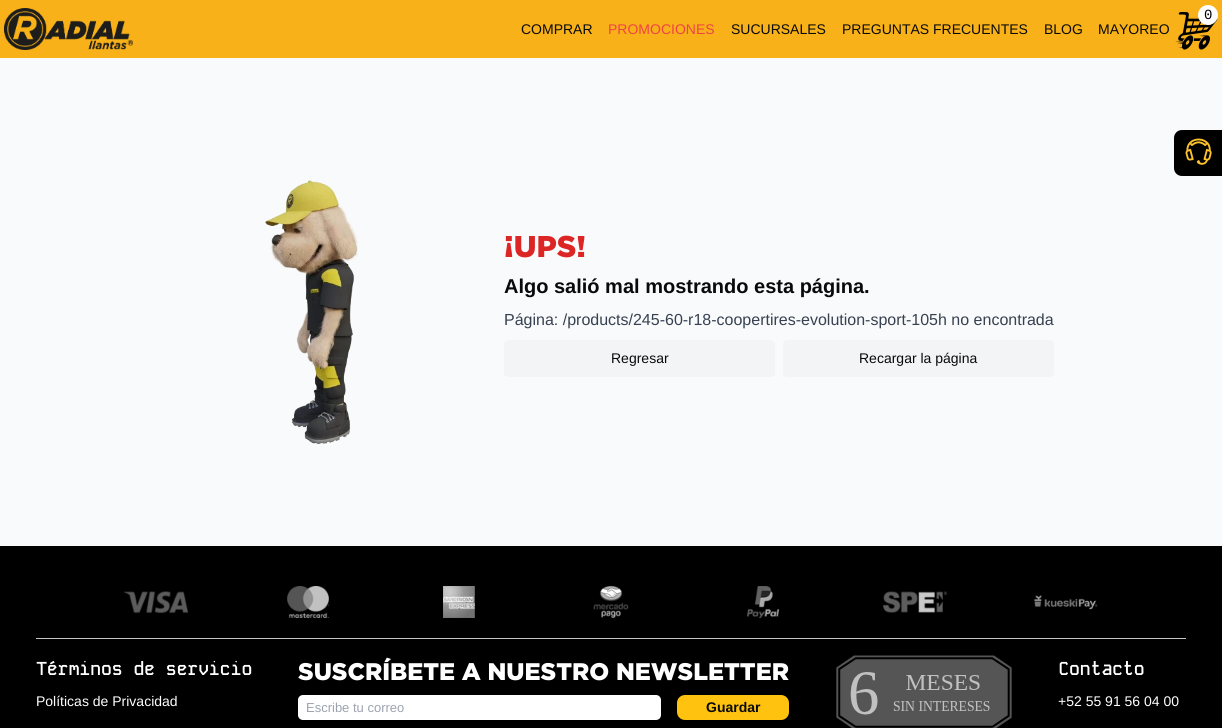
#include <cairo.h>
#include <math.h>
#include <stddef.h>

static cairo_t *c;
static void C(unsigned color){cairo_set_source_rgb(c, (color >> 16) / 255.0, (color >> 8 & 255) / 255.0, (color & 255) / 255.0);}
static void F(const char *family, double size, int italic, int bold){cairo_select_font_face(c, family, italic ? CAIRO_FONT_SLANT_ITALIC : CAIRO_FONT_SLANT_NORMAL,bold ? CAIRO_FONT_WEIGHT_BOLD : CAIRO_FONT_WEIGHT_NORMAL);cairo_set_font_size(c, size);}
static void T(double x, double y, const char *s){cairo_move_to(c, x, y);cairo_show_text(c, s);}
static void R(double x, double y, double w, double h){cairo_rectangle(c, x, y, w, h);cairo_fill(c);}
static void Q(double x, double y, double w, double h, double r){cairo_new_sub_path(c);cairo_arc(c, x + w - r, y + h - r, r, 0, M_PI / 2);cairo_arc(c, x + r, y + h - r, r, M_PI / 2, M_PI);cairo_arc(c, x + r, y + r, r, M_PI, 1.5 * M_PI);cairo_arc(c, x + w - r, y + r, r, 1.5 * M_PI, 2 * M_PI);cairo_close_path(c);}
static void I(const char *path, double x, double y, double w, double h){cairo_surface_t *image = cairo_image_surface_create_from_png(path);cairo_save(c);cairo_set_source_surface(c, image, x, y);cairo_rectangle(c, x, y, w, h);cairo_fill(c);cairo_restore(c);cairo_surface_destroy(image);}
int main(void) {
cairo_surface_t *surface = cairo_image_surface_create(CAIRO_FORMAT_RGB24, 1222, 728);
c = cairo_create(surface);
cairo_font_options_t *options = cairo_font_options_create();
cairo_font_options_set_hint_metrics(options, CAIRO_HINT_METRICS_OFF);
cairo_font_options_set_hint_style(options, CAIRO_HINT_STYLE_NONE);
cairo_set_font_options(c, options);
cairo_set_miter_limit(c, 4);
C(0xf9fafb);
cairo_paint(c);
C(0xf8b119);
R(0,0,1222,58);
I("1.png",4,8,129,42);
I("2.png",1175,11,43,39);
C(0xffffff);
cairo_arc(c,1208,15,10,0,2 * M_PI);
cairo_fill(c);
F("Liberation Mono",14,0,0);
C(0x000000);
T(1204,19,"0");
F("Liberation Sans",14,0,0);
C(0x0a0a0a);
T(521,34,"COMPRAR");
C(0xef4444);
T(608,34,"PROMOCIONES");
C(0x0a0a0a);
T(731,34,"SUCURSALES");
T(842,34,"PREGUNTAS FRECUENTES");
T(1044,34,"BLOG");
T(1098,34,"MAYOREO");
C(0x000000);
cairo_new_path(c);
cairo_move_to(c,1182,130);
cairo_line_to(c,1222,130);
cairo_line_to(c,1222,176);
cairo_line_to(c,1182,176);
cairo_curve_to(c,1177.5,176,1174,172.5,1174,168);
cairo_line_to(c,1174,138);
cairo_curve_to(c,1174,133.5,1177.5,130,1182,130);
cairo_close_path(c);
cairo_fill(c);
I("3.png",1185,138,27,27);
I("4.png",265,180,93,264);
F("Gotham Black",30,0,0);
C(0xdc2626);
T(504,257,"¡UPS!");
F("Liberation Sans",20,0,1);
C(0x0a0a0a);
T(504,293,"Algo salió mal mostrando esta página.");
F("Liberation Sans",16,0,0);
C(0x374151);
T(504,325,"Página: /products/245-60-r18-coopertires-evolution-sport-105h no encontrada");
C(0xf3f4f6);
Q(504,340,271,37,4);
cairo_fill(c);
F("Liberation Sans",14,0,0);
C(0x0a0a0a);
T(611,363,"Regresar");
C(0xf3f4f6);
Q(783,340,271,37,4);
cairo_fill(c);
C(0x0a0a0a);
T(859,363,"Recargar la página");
C(0x000000);
R(0,546,1222,182);
I("5.png",124,591,64,23);
I("6.png",287,586,42,32);
I("7.png",443,586,32,32);
I("8.png",593,586,36,32);
I("9.png",747,586,32,32);
I("10.png",883,591,64,22);
I("11.png",1034,595,64,15);
C(0xc6c6c6);
R(36,638,1150,1);
F("Kode Mono",18,0,1);
C(0xffffff);
T(36,675,"Términos de servicio");
F("Liberation Sans",14,0,0);
T(36,706,"Políticas de Privacidad");
F("Gotham Black",24,0,0);
T(298,680,"SUSCRÍBETE A NUESTRO NEWSLETTER");
Q(298,695,363,25,5);
cairo_fill(c);
F("Liberation Sans",13,0,0);
C(0x9ca3af);
T(306,712,"Escribe tu correo");
C(0xffc20e);
Q(677,695,112,25,8);
cairo_fill(c);
F("Liberation Sans",14,0,1);
C(0x0a0a0a);
T(706,712,"Guardar");
I("12.png",836,655,176,73);
F("Kode Mono",18,0,1);
C(0xffffff);
T(1058,675,"Contacto");
F("Liberation Sans",14,0,0);
T(1058,706,"+52 55 91 56 04 00");
cairo_surface_write_to_png(surface, "o.png");
cairo_font_options_destroy(options);
cairo_destroy(c);
cairo_surface_destroy(surface);
return 0;
}
